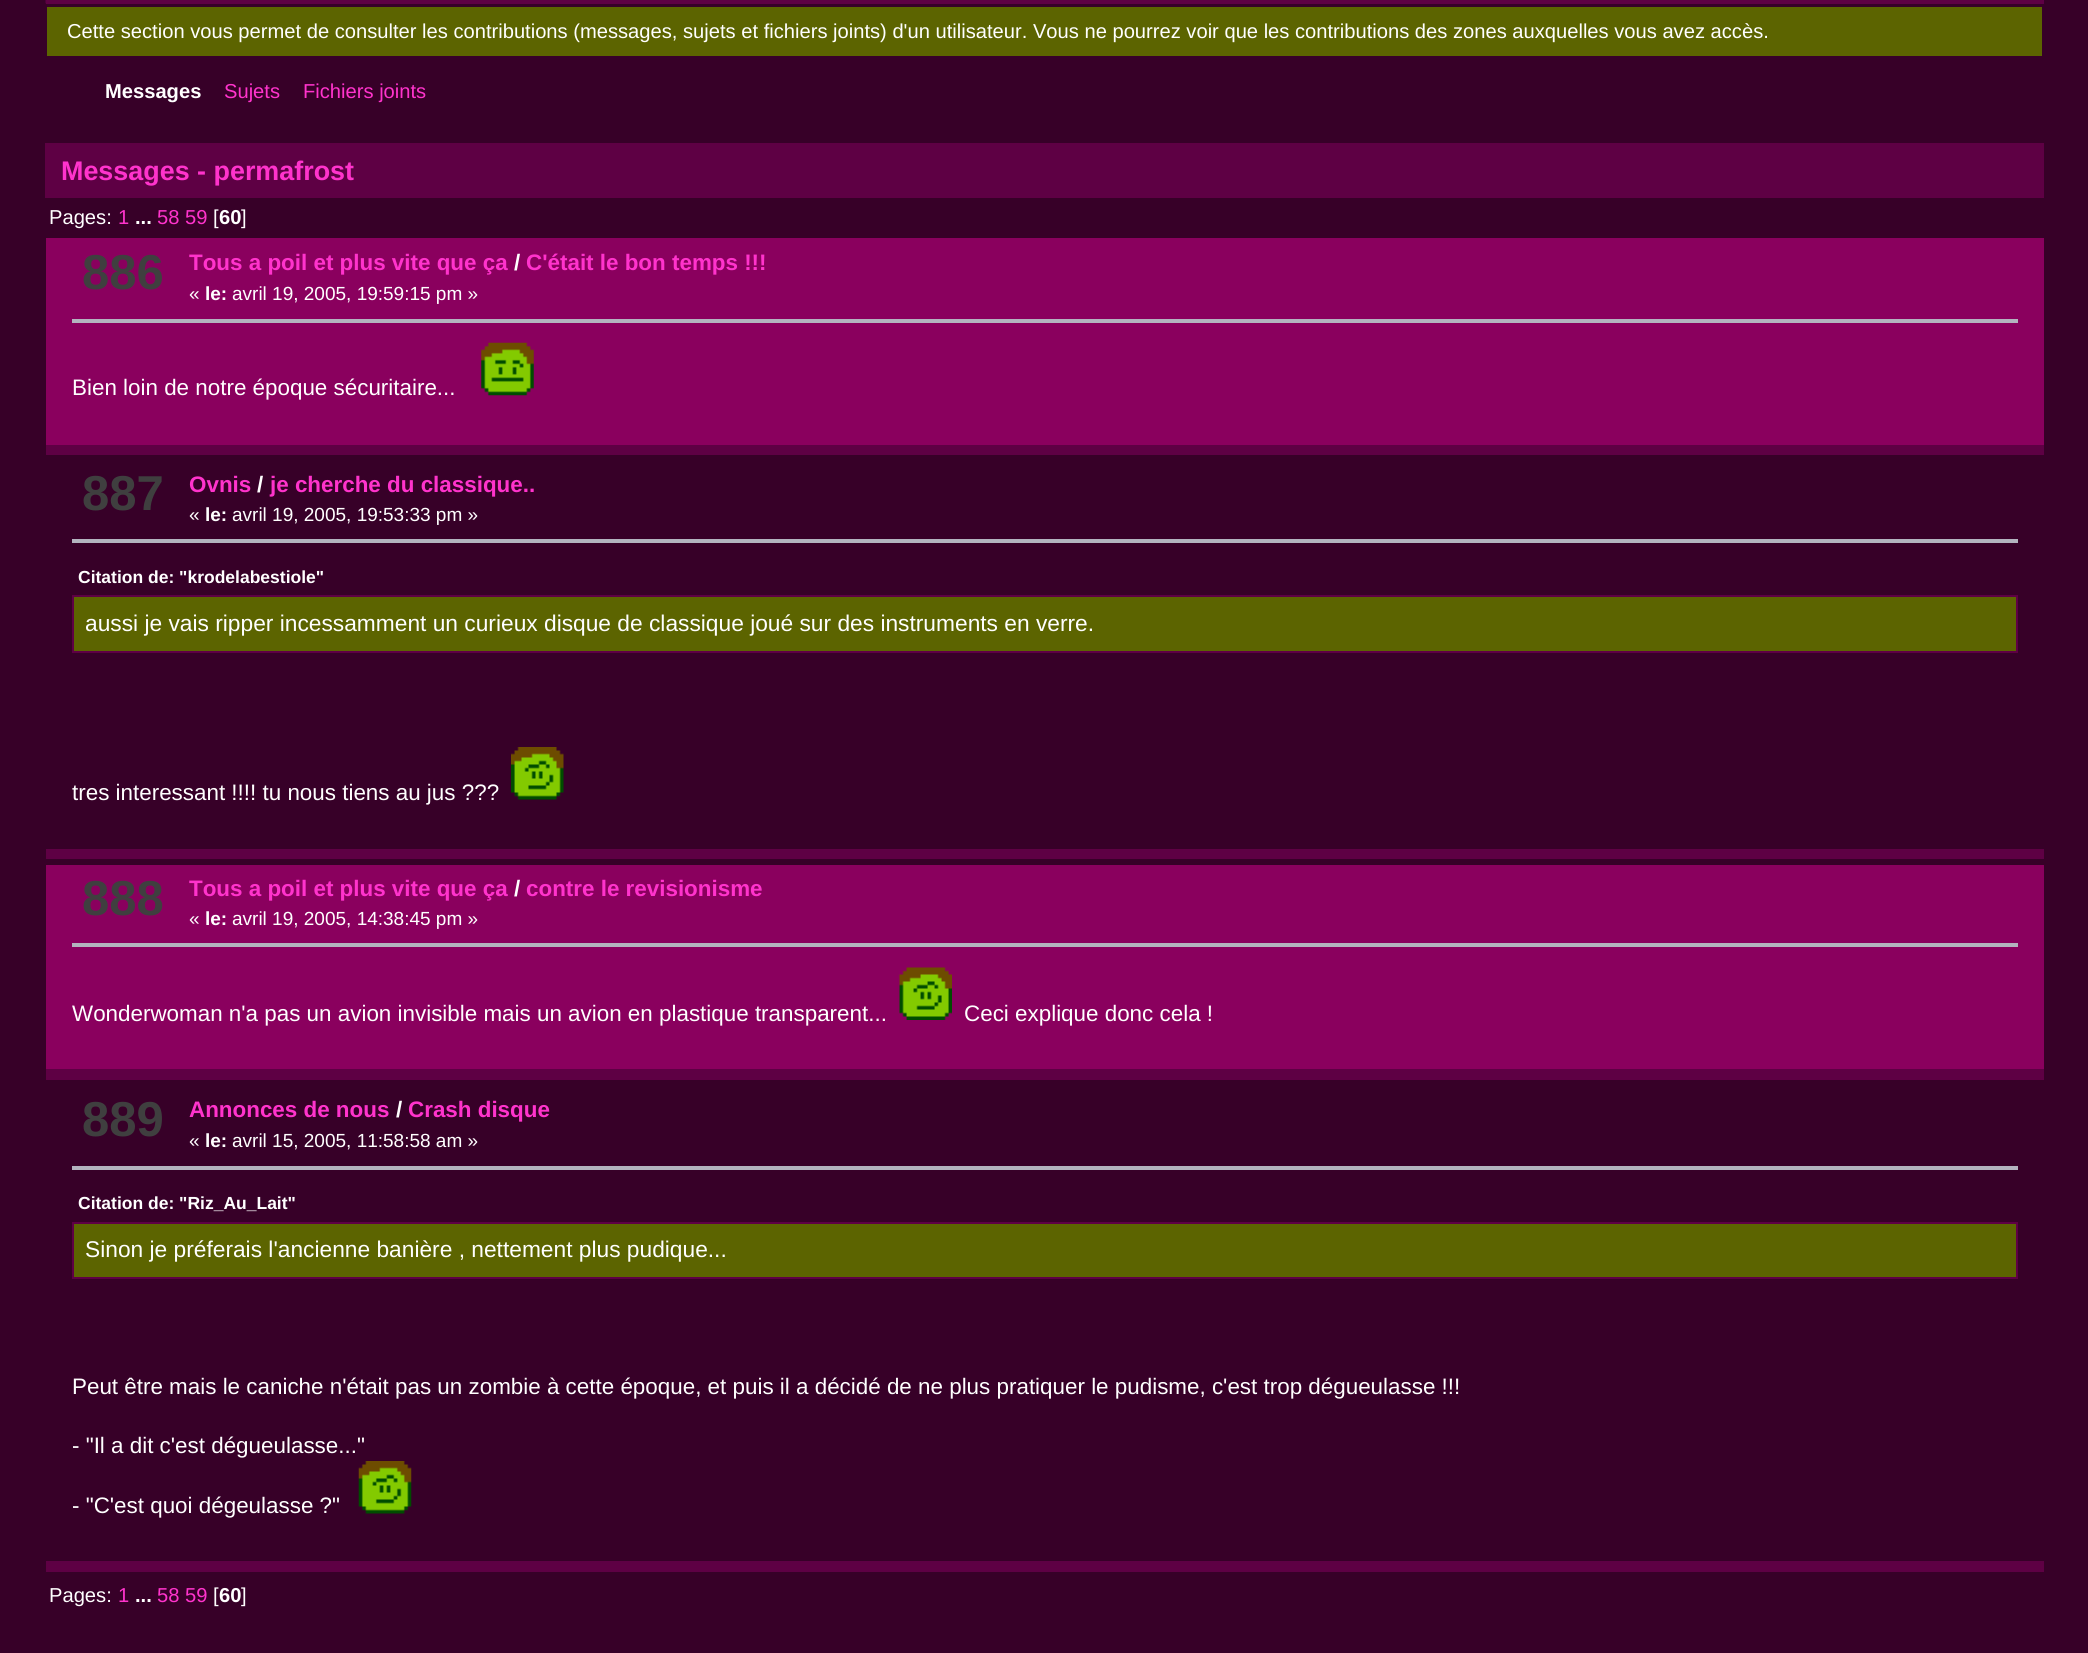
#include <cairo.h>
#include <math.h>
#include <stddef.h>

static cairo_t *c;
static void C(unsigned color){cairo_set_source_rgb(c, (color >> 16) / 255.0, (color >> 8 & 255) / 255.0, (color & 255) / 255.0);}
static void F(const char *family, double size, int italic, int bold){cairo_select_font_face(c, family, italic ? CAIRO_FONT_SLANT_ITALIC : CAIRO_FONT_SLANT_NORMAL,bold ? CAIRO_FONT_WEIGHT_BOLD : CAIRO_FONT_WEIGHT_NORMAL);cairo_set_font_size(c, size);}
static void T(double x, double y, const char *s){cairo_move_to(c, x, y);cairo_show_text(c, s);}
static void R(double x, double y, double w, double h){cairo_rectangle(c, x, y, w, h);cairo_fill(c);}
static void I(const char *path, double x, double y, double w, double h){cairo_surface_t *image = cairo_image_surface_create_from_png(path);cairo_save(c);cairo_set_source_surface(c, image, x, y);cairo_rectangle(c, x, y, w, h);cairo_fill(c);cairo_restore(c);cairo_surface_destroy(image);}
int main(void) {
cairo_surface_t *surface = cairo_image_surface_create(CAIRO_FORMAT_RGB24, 2088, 1653);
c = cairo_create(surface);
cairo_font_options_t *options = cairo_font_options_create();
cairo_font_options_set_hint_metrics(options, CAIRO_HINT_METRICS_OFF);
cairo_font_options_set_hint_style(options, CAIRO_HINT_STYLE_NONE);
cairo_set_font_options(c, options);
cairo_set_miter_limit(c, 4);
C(0x370028);
cairo_paint(c);
C(0x5e0044);
R(46,0,1998,4);
I("1.png",45,0,1,4);
C(0x5c6400);
R(47,7,1995,49);
F("Liberation Sans",20.15,0,0);
C(0xffffff);
T(67,38,"Cette section vous permet de consulter les contributions (messages, sujets et fichiers joints) d'un utilisateur. Vous ne pourrez voir que les contributions des zones auxquelles vous avez accès.");
F("Liberation Sans",20.15,0,1);
T(105,98,"Messages");
F("Liberation Sans",20.15,0,0);
C(0xff33cc);
T(224,98,"Sujets");
T(303,98,"Fichiers joints");
C(0x5e0044);
R(45,143,1999,55);
F("Liberation Sans",26.9,0,1);
C(0xff33cc);
T(61,180,"Messages - permafrost");
F("Liberation Sans",20.15,0,0);
C(0xffffff);
T(49,224,"Pages:");
C(0xff33cc);
T(118,224,"1");
F("Liberation Sans",20.15,0,1);
C(0xffffff);
T(135,224,"...");
F("Liberation Sans",20.15,0,0);
C(0xff33cc);
T(157,224,"58 59");
C(0xffffff);
T(213,224,"[");
F("Liberation Sans",20.15,0,1);
T(219,224,"60");
F("Liberation Sans",20.15,0,0);
T(241,224,"]");
C(0x8a005e);
R(46,238,1998,207);
F("Liberation Sans",49,0,1);
C(0x3f3f3f);
T(82,289,"886");
F("Liberation Sans",22.4,0,1);
C(0xff33cc);
T(189,270,"Tous a poil et plus vite que ça");
C(0xffffff);
T(514,270,"/");
C(0xff33cc);
T(526,270,"C'était le bon temps !!!");
F("Liberation Sans",19,0,0);
C(0xffffff);
T(189,300,"«");
F("Liberation Sans",19,0,1);
T(205,300,"le:");
F("Liberation Sans",19,0,0);
T(232,300,"avril 19, 2005, 19:59:15 pm »");
C(0xb3b3bf);
R(72,319,1946,4);
F("Liberation Sans",22.4,0,0);
C(0xffffff);
T(72,395,"Bien loin de notre époque sécuritaire...");
I("2.png",481,342,53,54);
C(0x5e0044);
R(46,445,1998,10);
F("Liberation Sans",49,0,1);
C(0x3f3f3f);
T(82,510,"887");
F("Liberation Sans",22.4,0,1);
C(0xff33cc);
T(189,492,"Ovnis");
C(0xffffff);
T(257,492,"/");
C(0xff33cc);
T(270,492,"je cherche du classique..");
F("Liberation Sans",19,0,0);
C(0xffffff);
T(189,521,"«");
F("Liberation Sans",19,0,1);
T(205,521,"le:");
F("Liberation Sans",19,0,0);
T(232,521,"avril 19, 2005, 19:53:33 pm »");
C(0xb3b3bf);
R(72,539,1946,4);
F("Liberation Sans",17.5,0,1);
C(0xffffff);
T(78,583,"Citation de: \"krodelabestiole\"");
C(0x5c6400);
cairo_rectangle(c,73,596,1944,56);
cairo_fill_preserve(c);
C(0x5e0044);
cairo_stroke(c);
F("Liberation Sans",22.75,0,0);
C(0xffffff);
T(85,631,"aussi je vais ripper incessamment un curieux disque de classique joué sur des instruments en verre.");
F("Liberation Sans",22.4,0,0);
T(72,800,"tres interessant !!!! tu nous tiens au jus ?\077?");
I("3.png",511,747,53,53);
C(0x5e0044);
R(46,849,1998,10);
C(0x8a005e);
R(46,865,1998,204);
F("Liberation Sans",49,0,1);
C(0x3f3f3f);
T(82,915,"888");
F("Liberation Sans",22.4,0,1);
C(0xff33cc);
T(189,896,"Tous a poil et plus vite que ça");
C(0xffffff);
T(514,896,"/");
C(0xff33cc);
T(526,896,"contre le revisionisme");
F("Liberation Sans",19,0,0);
C(0xffffff);
T(189,925,"«");
F("Liberation Sans",19,0,1);
T(205,925,"le:");
F("Liberation Sans",19,0,0);
T(232,925,"avril 19, 2005, 14:38:45 pm »");
C(0xb3b3bf);
R(72,943,1946,4);
F("Liberation Sans",22.4,0,0);
C(0xffffff);
T(72,1021,"Wonderwoman n'a pas un avion invisible mais un avion en plastique transparent...");
I("4.png",899,967,53,53);
T(964,1021,"Ceci explique donc cela !");
C(0x5e0044);
R(46,1069,1998,11);
F("Liberation Sans",49,0,1);
C(0x3f3f3f);
T(82,1136,"889");
F("Liberation Sans",22.4,0,1);
C(0xff33cc);
T(189,1117,"Annonces de nous");
C(0xffffff);
T(396,1117,"/");
C(0xff33cc);
T(408,1117,"Crash disque");
F("Liberation Sans",19,0,0);
C(0xffffff);
T(189,1147,"«");
F("Liberation Sans",19,0,1);
T(205,1147,"le:");
F("Liberation Sans",19,0,0);
T(232,1147,"avril 15, 2005, 11:58:58 am »");
C(0xb3b3bf);
R(72,1166,1946,4);
F("Liberation Sans",17.5,0,1);
C(0xffffff);
T(78,1209,"Citation de: \"Riz_Au_Lait\"");
C(0x5c6400);
cairo_rectangle(c,73,1223,1944,55);
cairo_fill_preserve(c);
C(0x5e0044);
cairo_stroke(c);
F("Liberation Sans",22.75,0,0);
C(0xffffff);
T(85,1257,"Sinon je préferais l'ancienne banière , nettement plus pudique...");
F("Liberation Sans",22.4,0,0);
T(72,1394,"Peut être mais le caniche n'était pas un zombie à cette époque, et puis il a décidé de ne plus pratiquer le pudisme, c'est trop dégueulasse !!!");
T(72,1453,"- \"Il a dit c'est dégueulasse...\"");
T(72,1513,"- \"C'est quoi dégeulasse ?\"");
I("5.png",358,1461,54,53);
C(0x5e0044);
R(46,1561,1998,11);
F("Liberation Sans",20.15,0,0);
C(0xffffff);
T(49,1602,"Pages:");
C(0xff33cc);
T(118,1602,"1");
F("Liberation Sans",20.15,0,1);
C(0xffffff);
T(135,1602,"...");
F("Liberation Sans",20.15,0,0);
C(0xff33cc);
T(157,1602,"58 59");
C(0xffffff);
T(213,1602,"[");
F("Liberation Sans",20.15,0,1);
T(219,1602,"60");
F("Liberation Sans",20.15,0,0);
T(241,1602,"]");
cairo_surface_write_to_png(surface, "o.png");
cairo_font_options_destroy(options);
cairo_destroy(c);
cairo_surface_destroy(surface);
return 0;
}
